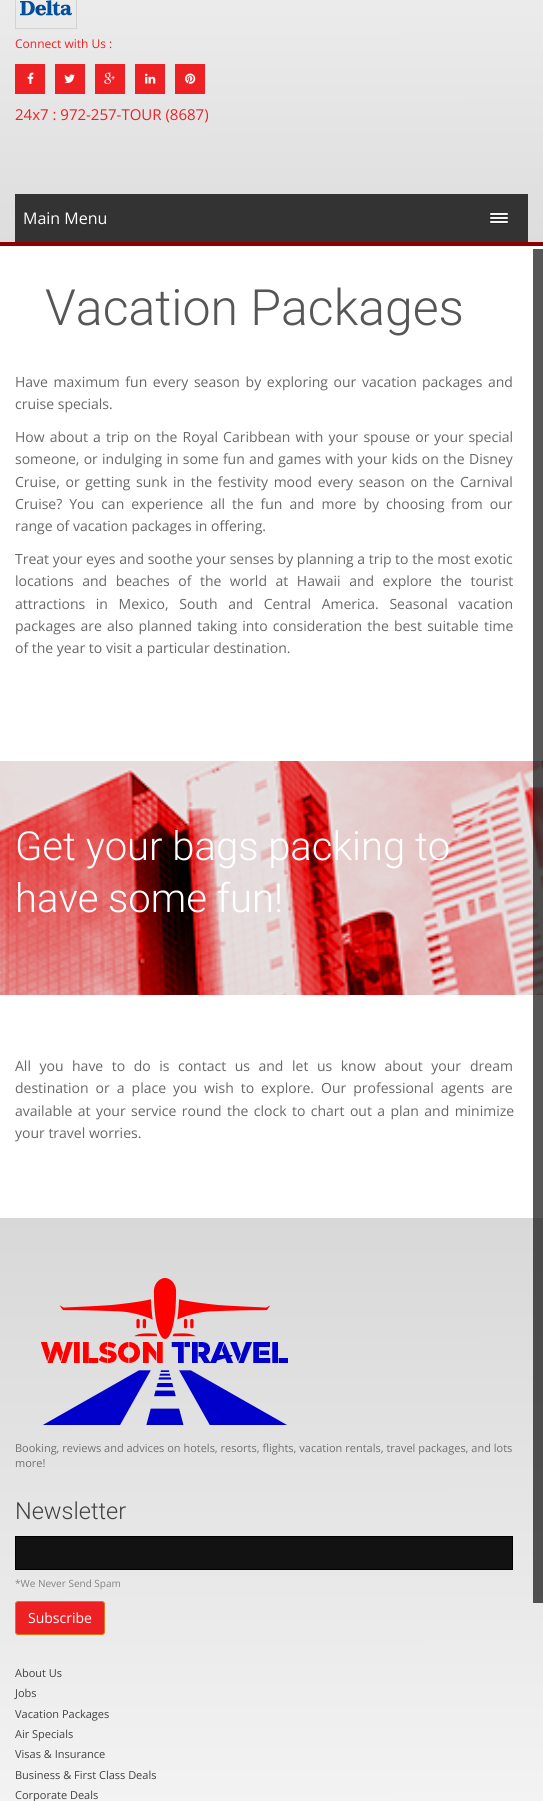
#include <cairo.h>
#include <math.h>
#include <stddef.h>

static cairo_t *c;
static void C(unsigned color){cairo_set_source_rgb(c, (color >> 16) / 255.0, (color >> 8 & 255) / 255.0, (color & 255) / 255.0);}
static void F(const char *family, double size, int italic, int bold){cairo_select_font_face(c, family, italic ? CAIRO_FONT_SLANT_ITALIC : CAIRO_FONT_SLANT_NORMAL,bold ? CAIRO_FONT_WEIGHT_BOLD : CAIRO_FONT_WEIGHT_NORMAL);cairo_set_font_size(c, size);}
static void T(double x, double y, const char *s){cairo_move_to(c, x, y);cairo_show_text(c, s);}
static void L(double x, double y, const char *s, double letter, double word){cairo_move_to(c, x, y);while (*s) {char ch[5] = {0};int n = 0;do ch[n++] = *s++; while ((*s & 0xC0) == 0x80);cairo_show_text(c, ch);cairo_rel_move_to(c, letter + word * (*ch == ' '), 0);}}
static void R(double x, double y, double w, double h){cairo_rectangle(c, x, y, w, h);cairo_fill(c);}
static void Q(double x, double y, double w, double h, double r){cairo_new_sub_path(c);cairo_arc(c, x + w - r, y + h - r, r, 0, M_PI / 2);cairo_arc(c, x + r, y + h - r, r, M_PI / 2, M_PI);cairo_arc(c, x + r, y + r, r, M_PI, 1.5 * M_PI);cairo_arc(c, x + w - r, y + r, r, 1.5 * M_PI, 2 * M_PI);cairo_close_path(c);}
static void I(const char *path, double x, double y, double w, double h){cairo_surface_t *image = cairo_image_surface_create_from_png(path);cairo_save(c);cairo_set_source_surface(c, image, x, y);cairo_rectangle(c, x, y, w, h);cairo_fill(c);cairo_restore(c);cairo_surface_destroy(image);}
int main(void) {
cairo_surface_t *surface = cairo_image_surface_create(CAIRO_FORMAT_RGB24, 543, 1801);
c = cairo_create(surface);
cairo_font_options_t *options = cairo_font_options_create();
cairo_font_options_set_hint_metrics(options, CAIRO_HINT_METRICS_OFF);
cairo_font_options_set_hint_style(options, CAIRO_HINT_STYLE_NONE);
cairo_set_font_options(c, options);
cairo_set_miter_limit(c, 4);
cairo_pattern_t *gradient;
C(0xffffff);
cairo_paint(c);
gradient = cairo_pattern_create_linear(271,-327,272,242);
cairo_pattern_add_color_stop_rgba(gradient,0,1,1,1,1);
cairo_pattern_add_color_stop_rgba(gradient,1,0.867,0.867,0.867,1);
cairo_set_source(c,gradient);
cairo_pattern_destroy(gradient);
R(0,0,543,242);
C(0x8e0000);
R(0,242,543,4);
cairo_rectangle(c,15.5,-.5,61,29);
C(0xd3d3d3);
cairo_set_line_width(c,1);
cairo_stroke(c);
I("1.png",20,0,52,16);
F("Open Sans",12,0,0);
C(0xed2024);
T(15,48,"Connect with Us :");
R(15,64,30,30);
I("2.png",27,72,7,12);
R(55,64,30,30);
I("3.png",64,74,11,9);
R(95,64,30,30);
I("4.png",104,72,11,12);
R(135,64,30,30);
I("5.png",145,73,11,11);
R(175,64,30,30);
I("6.png",185,73,11,11);
F("Open Sans",15,0,0);
T(15,120,"24x7 : 972-257-TOUR (8687)");
C(0x333333);
R(15,194,513,48);
F("Open Sans",16,0,0);
C(0xffffff);
T(23,224,"Main Menu");
C(0x262626);
cairo_new_path(c);
cairo_move_to(c,490,214.5);
cairo_curve_to(c,489,216.5,493.5,216,493.5,216);
cairo_line_to(c,504.5,216);
cairo_curve_to(c,504.5,216,509,216.5,508,214.5);
cairo_curve_to(c,507,215.5,500.5,215,499,215);
cairo_curve_to(c,497.5,215,491,215.5,490,214.5);
cairo_close_path(c);
cairo_fill(c);
C(0xf5f5f5);
Q(490,213,18,2,1);
cairo_fill(c);
C(0x262626);
cairo_new_path(c);
cairo_move_to(c,490,218.5);
cairo_curve_to(c,489,220.5,493.5,220,493.5,220);
cairo_line_to(c,504.5,220);
cairo_curve_to(c,504.5,220,509,220.5,508,218.5);
cairo_curve_to(c,507,219.5,500.5,219,499,219);
cairo_curve_to(c,497.5,219,491,219.5,490,218.5);
cairo_close_path(c);
cairo_fill(c);
C(0xf5f5f5);
Q(490,217,18,2,1);
cairo_fill(c);
C(0x262626);
cairo_new_path(c);
cairo_move_to(c,490,222.5);
cairo_curve_to(c,489,224.5,493.5,224,493.5,224);
cairo_line_to(c,504.5,224);
cairo_curve_to(c,504.5,224,509,224.5,508,222.5);
cairo_curve_to(c,507,223.5,500.5,223,499,223);
cairo_curve_to(c,497.5,223,491,223.5,490,222.5);
cairo_close_path(c);
cairo_fill(c);
C(0xf5f5f5);
Q(490,221,18,2,1);
cairo_fill(c);
F("Roboto Light",50,0,0);
C(0x565656);
T(45,325,"Vacation Packages");
F("Open Sans",14,0,0);
C(0x676767);
L(15,387,"Have maximum fun every season by exploring our vacation",0,2);
L(422,387,"packages and",0,2);
T(15,409,"cruise specials.");
L(15,442,"How about",0,1.5);
L(93,442,"a trip on the Royal Caribbean with your spouse or",0,1.5);
L(434,442,"your special",0,1);
L(15,464,"someone, or indulging in some fun and games with your kids on the",0,.6);
T(469,464,"Disney");
L(15,487,"Cruise, or getting sunk in the festivity mood every season on the",0,2);
T(460,487,"Carnival");
L(15,509,"Cruise? You can experience all the fun and more by choosing",0,3.4);
L(451,509,"from our",0,3.4);
T(15,531,"range of vacation packages in offering.");
T(15,564,"Treat your eyes and soothe your senses by planning a trip to the most exotic");
L(15,586,"locations and beaches of the world at Hawaii and explore the tourist",0,4.9);
L(15,609,"attractions in Mexico, South and Central America. Seasonal vacation",0,7);
L(15,631,"packages are",0,1.5);
L(107,631,"also planned taking into consideration the best suitable",0,1.5);
T(484,631,"time");
T(15,653,"of the year to visit a particular destination.");
I("7.png",0,761,543,234);
F("Roboto Light",40,0,0);
C(0xffffff);
T(15,860,"Get your bags packing to");
T(15,912,"have some fun!");
F("Open Sans",14,0,0);
C(0x676767);
L(15,1071,"All you have to do is contact us and",0,4.9);
L(292,1071,"let us know about your",0,4.9);
T(470,1071,"dream");
L(15,1093,"destination or a place you wish to",0,3.4);
L(261,1093,"explore. Our professional agents are",0,3.4);
L(15,1116,"available at your service round",0,1.75);
L(227,1116,"the clock to chart out a plan and minimize",0,1.75);
T(15,1138,"your travel worries.");
gradient = cairo_pattern_create_linear(271,1218,272,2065);
cairo_pattern_add_color_stop_rgba(gradient,0,0.847,0.847,0.847,1);
cairo_pattern_add_color_stop_rgba(gradient,1,1,1,1,1);
cairo_set_source(c,gradient);
cairo_pattern_destroy(gradient);
R(0,1218,543,583);
I("8.png",40,1278,248,147);
F("Open Sans",11,0,0);
C(0x707070);
T(15,1452,"Booking, reviews and advices on hotels, resorts, flights, vacation rentals, travel packages, and lots");
T(15,1467,"more!");
F("Roboto Light",23.5,0,0);
C(0x414141);
T(15,1519,"Newsletter");
C(0x121212);
cairo_rectangle(c,15.5,1536.5,497,33);
cairo_fill_preserve(c);
C(0x000000);
cairo_stroke(c);
F("Open Sans",10,0,0);
C(0x818181);
T(15,1587,"*We Never Send Spam");
C(0xed2024);
Q(15.5,1601.5,89,33,2.5);
cairo_fill_preserve(c);
C(0xe27513);
cairo_stroke(c);
F("Open Sans",14,0,0);
C(0xffffff);
T(28,1623,"Subscribe");
F("Open Sans",11,0,0);
C(0x414141);
T(15,1677,"About Us");
T(15,1697,"Jobs");
T(15,1718,"Vacation Packages");
T(15,1738,"Air Specials");
T(15,1758,"Visas & Insurance");
T(15,1779,"Business & First Class Deals");
T(15,1799,"Corporate Deals");
cairo_set_source_rgba(c,0,0,0,0.66);
R(533,249,10,1354);
cairo_surface_write_to_png(surface, "o.png");
cairo_font_options_destroy(options);
cairo_destroy(c);
cairo_surface_destroy(surface);
return 0;
}
